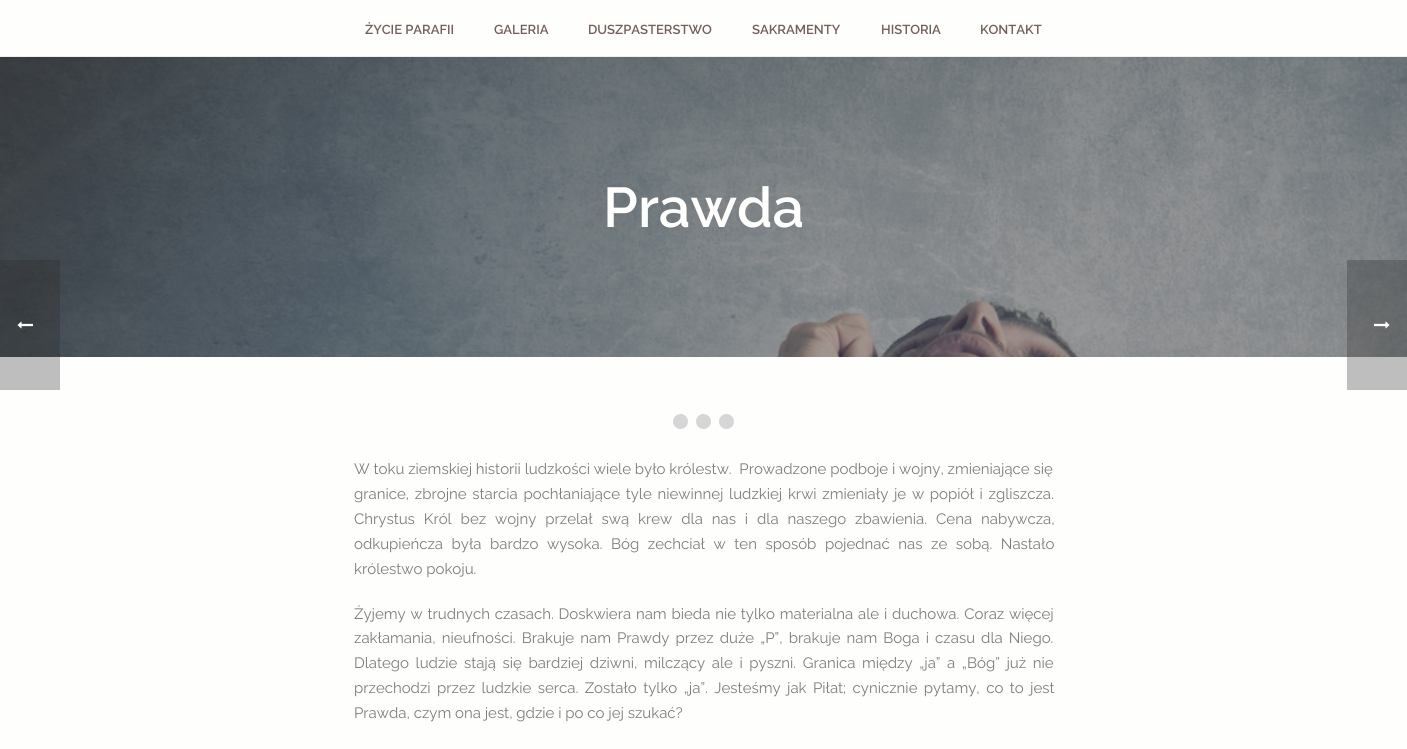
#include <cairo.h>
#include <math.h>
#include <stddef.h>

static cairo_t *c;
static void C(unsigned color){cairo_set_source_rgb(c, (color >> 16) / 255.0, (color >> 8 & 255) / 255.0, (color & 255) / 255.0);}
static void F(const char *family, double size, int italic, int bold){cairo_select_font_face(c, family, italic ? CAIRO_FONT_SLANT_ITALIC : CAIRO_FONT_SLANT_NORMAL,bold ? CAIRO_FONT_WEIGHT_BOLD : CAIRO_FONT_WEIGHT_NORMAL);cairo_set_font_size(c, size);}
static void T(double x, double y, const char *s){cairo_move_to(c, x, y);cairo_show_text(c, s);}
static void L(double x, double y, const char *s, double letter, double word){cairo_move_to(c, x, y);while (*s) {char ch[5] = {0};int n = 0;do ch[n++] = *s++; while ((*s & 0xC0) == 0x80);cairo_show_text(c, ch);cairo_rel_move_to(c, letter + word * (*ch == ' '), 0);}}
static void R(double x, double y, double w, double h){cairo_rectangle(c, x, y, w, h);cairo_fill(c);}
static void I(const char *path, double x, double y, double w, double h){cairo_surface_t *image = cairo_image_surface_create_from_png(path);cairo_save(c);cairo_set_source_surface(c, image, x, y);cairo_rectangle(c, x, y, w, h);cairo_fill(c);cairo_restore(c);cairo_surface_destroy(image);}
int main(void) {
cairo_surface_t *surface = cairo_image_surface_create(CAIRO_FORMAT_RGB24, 1407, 749);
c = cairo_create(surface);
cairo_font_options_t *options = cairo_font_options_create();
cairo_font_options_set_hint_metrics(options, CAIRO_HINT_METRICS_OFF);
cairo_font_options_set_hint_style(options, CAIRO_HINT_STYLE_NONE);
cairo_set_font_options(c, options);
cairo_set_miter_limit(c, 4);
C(0xfefefd);
cairo_paint(c);
I("2.png",0,57,1407,300);
cairo_set_source_rgba(c,0.169,0.165,0.161,0.3);
R(0,260,60,130);
I("1.png",17,321,16,8);
C(0xefefee);
R(0,56,1407,1);
F("Raleway SemiBold",13,0,0);
C(0x725e5b);
T(365,34,"ŻYCIE PARAFII");
T(494,34,"GALERIA");
T(588,34,"DUSZPASTERSTWO");
T(752,34,"SAKRAMENTY");
T(881,34,"HISTORIA");
T(980,34,"KONTAKT");
F("Raleway SemiBold",56,0,0);
C(0xfefefd);
T(603,227,"Prawda");
F("Raleway",15,0,0);
C(0x7f7d7a);
T(354,474,"W toku ziemskiej historii ludzkości wiele było królestw.  Prowadzone podboje i wojny, zmieniające się");
L(354,499,"granice, zbrojne starcia pochłaniające tyle niewinnej ludzkiej krwi zmieniały je w popiół i zgliszcza.",0,1.9);
L(354,524,"Chrystus Król bez wojny przelał swą krew dla nas i dla naszego zbawienia. Cena nabywcza,",0,5.1);
L(354,549,"odkupieńcza była bardzo wysoka. Bóg zechciał w ten sposób pojednać nas ze sobą. Nastało",0,4.75);
T(354,574,"królestwo pokoju.");
L(354,619,"Żyjemy w trudnych czasach. Doskwiera nam bieda nie tylko materialna ale i duchowa. Coraz więcej",0,1);
L(354,643,"zakłamania, nieufności. Brakuje nam Prawdy przez duże „P”, brakuje nam Boga i czasu dla Niego.",0,2.25);
L(354,668,"Dlatego ludzie stają się bardziej dziwni, milczący ale i pyszni. Granica między „ja” a „Bóg” już nie",0,2.75);
L(354,693,"przechodzi przez ludzkie serca. Zostało tylko „ja”. Jesteśmy jak Piłat; cynicznie pytamy, co to jest",0,2.6);
T(354,718,"Prawda, czym ona jest, gdzie i po co jej szukać?");
cairo_set_source_rgba(c,0.169,0.165,0.161,0.3);
R(1347,260,60,130);
I("3.png",1374,321,16,8);
C(0xd7d6d6);
cairo_arc(c,680.5,421.5,7.5,0,2 * M_PI);
cairo_fill(c);
cairo_arc(c,703.5,421.5,7.5,0,2 * M_PI);
cairo_fill(c);
cairo_arc(c,726.5,421.5,7.5,0,2 * M_PI);
cairo_fill(c);
cairo_surface_write_to_png(surface, "o.png");
cairo_font_options_destroy(options);
cairo_destroy(c);
cairo_surface_destroy(surface);
return 0;
}
